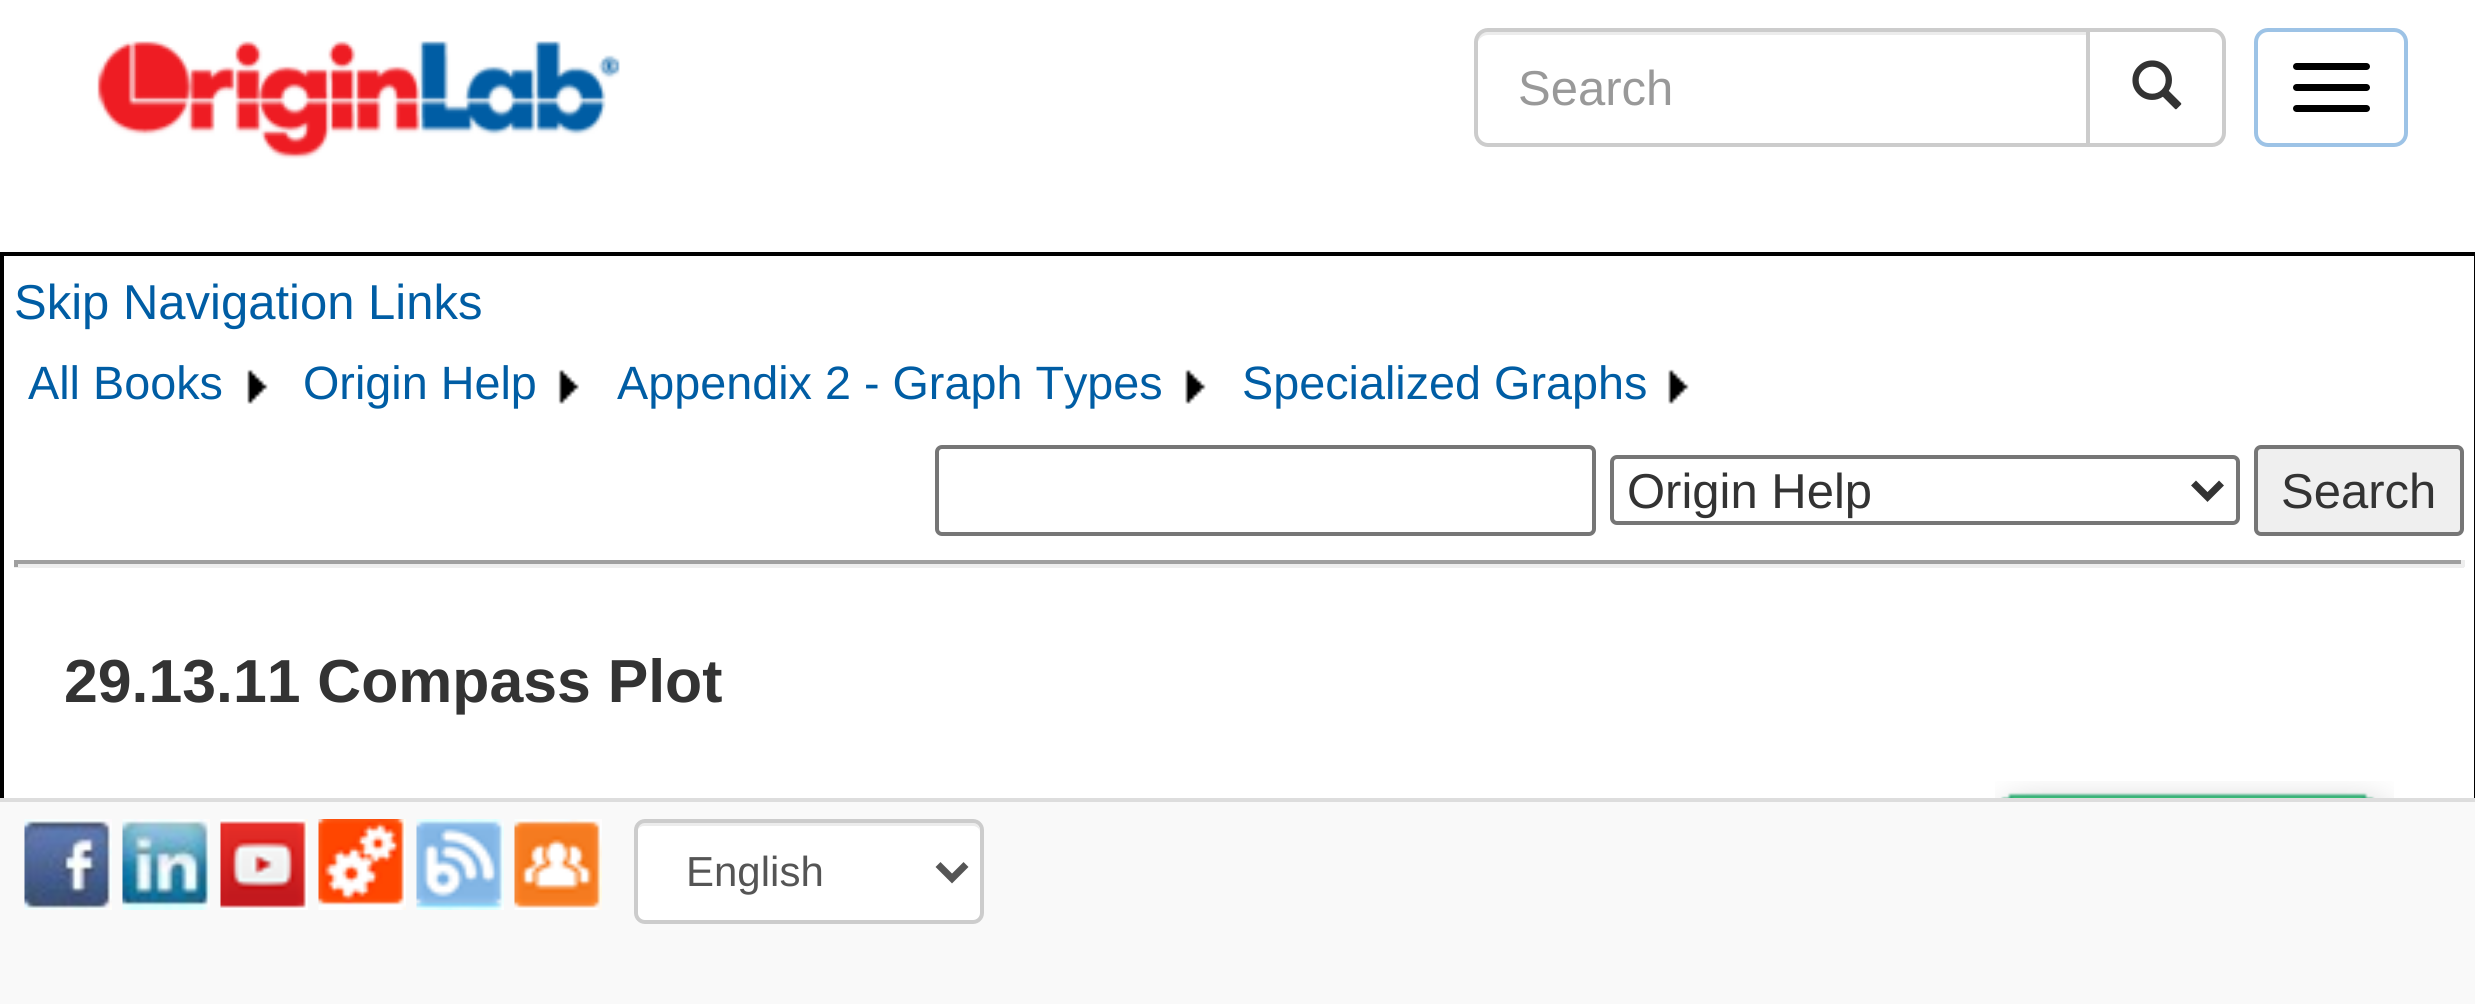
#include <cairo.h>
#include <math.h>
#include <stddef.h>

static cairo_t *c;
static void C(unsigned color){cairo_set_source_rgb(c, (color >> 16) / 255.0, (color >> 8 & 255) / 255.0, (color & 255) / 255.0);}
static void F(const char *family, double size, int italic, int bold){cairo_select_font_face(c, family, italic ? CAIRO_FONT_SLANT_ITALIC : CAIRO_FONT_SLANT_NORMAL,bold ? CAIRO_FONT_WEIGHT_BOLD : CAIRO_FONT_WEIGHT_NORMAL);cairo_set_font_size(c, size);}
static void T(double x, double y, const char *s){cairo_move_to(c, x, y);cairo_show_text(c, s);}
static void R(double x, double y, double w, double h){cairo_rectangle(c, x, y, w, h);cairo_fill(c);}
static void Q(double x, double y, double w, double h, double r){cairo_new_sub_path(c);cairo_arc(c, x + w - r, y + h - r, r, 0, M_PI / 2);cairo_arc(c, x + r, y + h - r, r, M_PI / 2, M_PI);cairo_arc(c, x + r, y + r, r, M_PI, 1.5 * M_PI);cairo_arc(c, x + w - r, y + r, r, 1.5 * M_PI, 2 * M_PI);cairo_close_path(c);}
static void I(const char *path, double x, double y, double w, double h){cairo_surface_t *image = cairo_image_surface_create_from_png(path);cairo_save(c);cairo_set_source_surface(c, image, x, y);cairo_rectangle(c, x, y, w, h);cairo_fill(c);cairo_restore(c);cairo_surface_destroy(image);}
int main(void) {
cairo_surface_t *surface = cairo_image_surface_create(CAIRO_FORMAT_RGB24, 2475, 1004);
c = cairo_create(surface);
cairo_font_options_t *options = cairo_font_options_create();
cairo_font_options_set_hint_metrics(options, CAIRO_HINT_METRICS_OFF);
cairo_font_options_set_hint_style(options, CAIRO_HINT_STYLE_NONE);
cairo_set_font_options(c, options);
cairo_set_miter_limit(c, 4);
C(0xffffff);
cairo_paint(c);
I("1.png",97,41,523,118);
cairo_new_path(c);
cairo_move_to(c,2088,30);
cairo_line_to(c,2212,30);
cairo_curve_to(c,2218.5,30,2224,35.5,2224,42);
cairo_line_to(c,2224,133);
cairo_curve_to(c,2224,139.5,2218.5,145,2212,145);
cairo_line_to(c,2088,145);
cairo_close_path(c);
C(0xcccccc);
cairo_set_line_width(c,4);
cairo_stroke(c);
C(0xffffff);
cairo_new_path(c);
cairo_move_to(c,1488,28);
cairo_line_to(c,2090,28);
cairo_line_to(c,2090,147);
cairo_line_to(c,1488,147);
cairo_curve_to(c,1480.5,147,1474,140.5,1474,133);
cairo_line_to(c,1474,42);
cairo_curve_to(c,1474,34.5,1480.5,28,1488,28);
cairo_close_path(c);
cairo_fill(c);
C(0xececec);
cairo_new_path(c);
cairo_move_to(c,1488,35);
cairo_line_to(c,2086,35);
cairo_line_to(c,2086,32);
cairo_line_to(c,1488,32);
cairo_curve_to(c,1482,32,1477,37,1477,43);
cairo_line_to(c,1477,46);
cairo_curve_to(c,1477,40,1482,35,1488,35);
cairo_close_path(c);
cairo_fill(c);
cairo_new_path(c);
cairo_move_to(c,1488,30);
cairo_line_to(c,2088,30);
cairo_line_to(c,2088,145);
cairo_line_to(c,1488,145);
cairo_curve_to(c,1481.5,145,1476,139.5,1476,133);
cairo_line_to(c,1476,42);
cairo_curve_to(c,1476,35.5,1481.5,30,1488,30);
cairo_close_path(c);
C(0xcccccc);
cairo_stroke(c);
F("Liberation Sans",49,0,0);
C(0x999999);
T(1518,105,"Search");
I("2.png",2132,60,50,50);
Q(2256,30,150,115,12);
C(0x9dc3e6);
cairo_stroke(c);
C(0x000000);
Q(2293,63,77,7,3.5);
cairo_fill(c);
Q(2293,84,77,7,3.5);
cairo_fill(c);
Q(2293,105,77,7,3.5);
cairo_fill(c);
cairo_rectangle(c,2,254,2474,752);
cairo_stroke(c);
C(0x005da4);
T(14,319,"Skip Navigation Links");
F("Liberation Sans",46.75,0,0);
T(28,399,"All Books");
I("3.png",247,369,21,35);
T(303,399,"Origin Help");
I("4.png",558,369,21,35);
T(617,399,"Appendix 2 - Graph Types");
I("5.png",1185,369,21,35);
T(1242,399,"Specialized Graphs");
I("5.png",1668,369,21,35);
Q(937,447,657,87,5);
C(0x767676);
cairo_stroke(c);
Q(1612,457,626,66,5);
cairo_stroke(c);
cairo_new_path(c);
cairo_move_to(c,2193.5,483);
cairo_line_to(c,2207.5,497);
cairo_line_to(c,2221.5,483);
C(0x333333);
cairo_set_line_width(c,7);
cairo_stroke(c);
F("Liberation Sans",49,0,0);
T(1627,508,"Origin Help");
C(0xefefef);
Q(2256,447,206,87,5);
cairo_fill_preserve(c);
C(0x767676);
cairo_set_line_width(c,4);
cairo_stroke(c);
C(0x333333);
T(2281,508,"Search");
C(0x9f9f9f);
R(14,560,2450,4);
C(0xeeeeee);
R(2461,560,4,7);
R(14,564,2450,4);
C(0x9f9f9f);
R(14,560,4,7);
F("Liberation Sans",60.75,0,1);
C(0x333333);
T(64,702,"29.13.11 Compass Plot");
I("6.png",1995,781,399,17);
C(0xf9f9f9);
R(0,802,2475,202);
C(0xdddddd);
R(0,798,2475,4);
I("7.png",24,819,88,91);
I("8.png",122,819,88,91);
I("9.png",220,819,88,91);
I("10.png",318,819,88,91);
I("11.png",416,819,88,91);
I("12.png",514,819,88,91);
C(0xffffff);
Q(634,819,350,105,11);
cairo_fill(c);
C(0xececec);
cairo_new_path(c);
cairo_move_to(c,644,826);
cairo_line_to(c,973,826);
cairo_curve_to(c,977,826,980,829,980,833);
cairo_curve_to(c,980,829,979,824,974,823);
cairo_line_to(c,643,823);
cairo_curve_to(c,638,824,637,829,637,833);
cairo_curve_to(c,637,829,640,826,644,826);
cairo_close_path(c);
cairo_fill(c);
Q(636,821,346,101,9);
C(0xcccccc);
cairo_stroke(c);
cairo_new_path(c);
cairo_move_to(c,938,864.5);
cairo_line_to(c,952,878.5);
cairo_line_to(c,966,864.5);
C(0x555555);
cairo_set_line_width(c,7);
cairo_stroke(c);
F("Liberation Sans",42,0,0);
T(686,886,"English");
cairo_surface_write_to_png(surface, "o.png");
cairo_font_options_destroy(options);
cairo_destroy(c);
cairo_surface_destroy(surface);
return 0;
}
